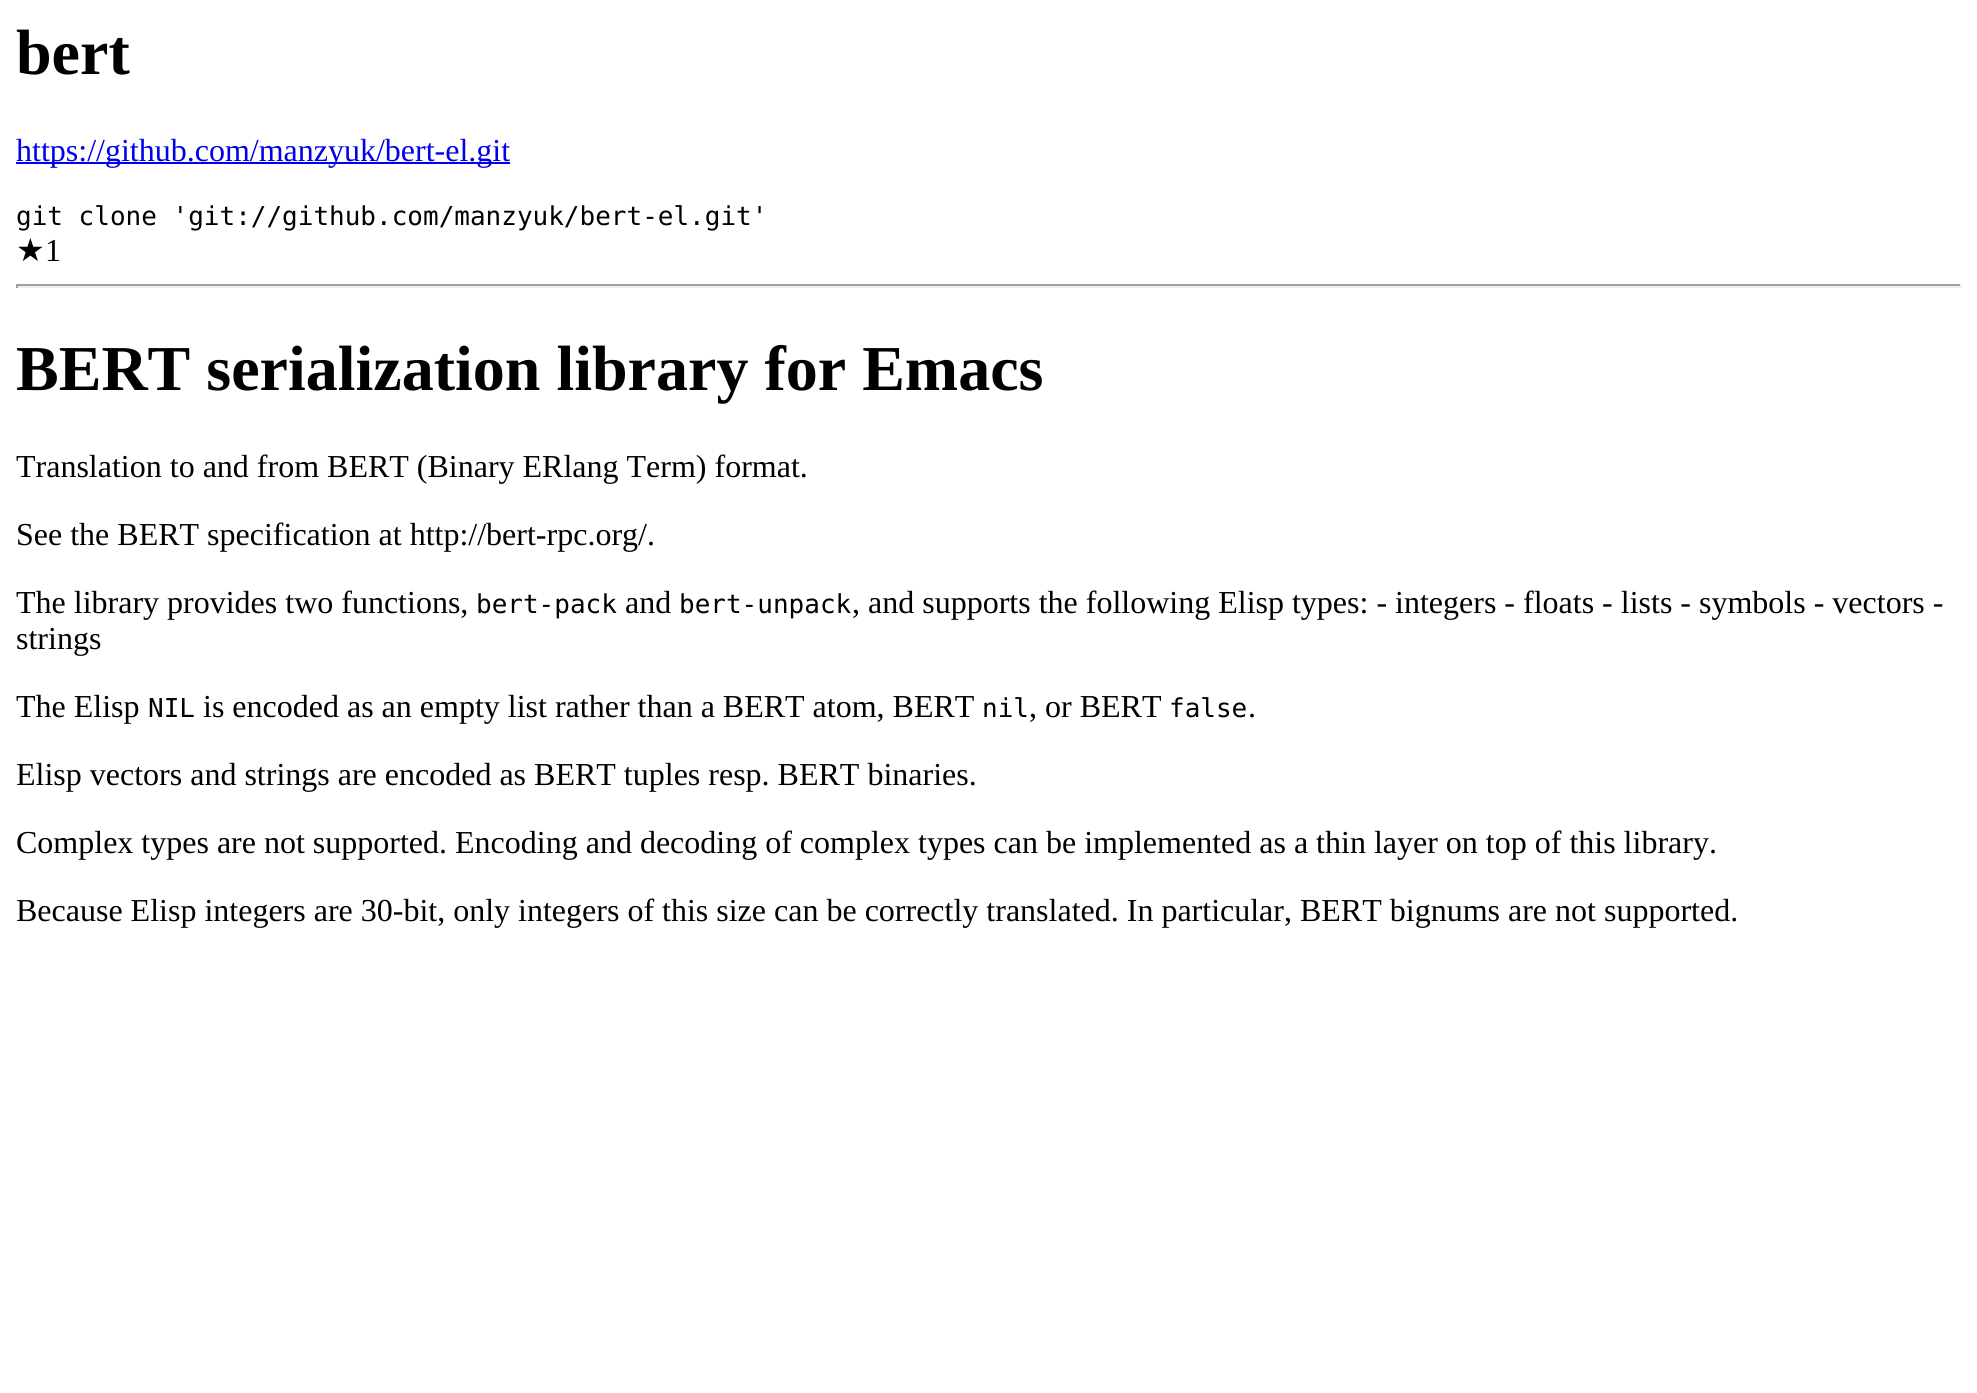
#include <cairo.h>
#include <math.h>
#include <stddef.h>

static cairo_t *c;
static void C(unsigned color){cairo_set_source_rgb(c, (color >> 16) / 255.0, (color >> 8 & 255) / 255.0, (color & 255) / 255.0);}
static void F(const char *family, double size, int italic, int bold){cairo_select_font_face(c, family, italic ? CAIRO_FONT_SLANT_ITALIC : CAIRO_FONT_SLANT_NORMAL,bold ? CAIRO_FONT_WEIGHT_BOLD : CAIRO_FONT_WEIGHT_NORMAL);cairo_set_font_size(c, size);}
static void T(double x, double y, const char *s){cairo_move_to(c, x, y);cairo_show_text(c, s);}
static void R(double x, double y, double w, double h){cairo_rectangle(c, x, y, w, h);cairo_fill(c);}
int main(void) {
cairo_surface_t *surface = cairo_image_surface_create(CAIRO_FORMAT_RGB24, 1977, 1393);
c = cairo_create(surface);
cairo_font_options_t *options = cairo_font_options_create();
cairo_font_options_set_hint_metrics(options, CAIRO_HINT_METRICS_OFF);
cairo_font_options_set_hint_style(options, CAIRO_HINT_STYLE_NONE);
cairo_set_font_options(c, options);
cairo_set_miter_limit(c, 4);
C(0xffffff);
cairo_paint(c);
F("Liberation Serif",64,0,1);
C(0x000000);
T(16,74,"bert");
C(0x0000ee);
R(16,162,494,2);
F("Liberation Serif",32,0,0);
T(16,161,"https://github.com/manzyuk/bert-el.git");
F("DejaVu Sans Mono",26,0,0);
C(0x000000);
T(16,225,"git clone 'git://github.com/manzyuk/bert-el.git'");
F("DejaVu Sans",32,0,0);
T(16,261,"★");
F("Liberation Serif",32,0,0);
T(45,261,"1");
C(0x9f9f9f);
R(16,284,1946,2);
C(0xeeeeee);
R(1960,284,2,4);
R(16,286,1946,2);
C(0x9f9f9f);
R(16,284,2,4);
F("Liberation Serif",64,0,1);
C(0x000000);
T(16,390,"BERT serialization library for Emacs");
F("Liberation Serif",32,0,0);
T(16,477,"Translation to and from BERT (Binary ERlang Term) format.");
T(16,545,"See the BERT specification at http://bert-rpc.org/.");
T(16,613,"The library provides two functions,");
F("DejaVu Sans Mono",26,0,0);
T(476,613,"bert-pack");
F("Liberation Serif",32,0,0);
T(625,613,"and");
F("DejaVu Sans Mono",26,0,0);
T(679,613,"bert-unpack");
F("Liberation Serif",32,0,0);
T(852,613,", and supports the following Elisp types: - integers - floats - lists - symbols - vectors -");
T(16,649,"strings");
T(16,717,"The Elisp");
F("DejaVu Sans Mono",26,0,0);
T(148,717,"NIL");
F("Liberation Serif",32,0,0);
T(203,717,"is encoded as an empty list rather than a BERT atom, BERT");
F("DejaVu Sans Mono",26,0,0);
T(982,717,"nil");
F("Liberation Serif",32,0,0);
T(1029,717,", or BERT");
F("DejaVu Sans Mono",26,0,0);
T(1169,717,"false");
F("Liberation Serif",32,0,0);
T(1248,717,".");
T(16,785,"Elisp vectors and strings are encoded as BERT tuples resp. BERT binaries.");
T(16,853,"Complex types are not supported. Encoding and decoding of complex types can be implemented as a thin layer on top of this library.");
T(16,921,"Because Elisp integers are 30-bit, only integers of this size can be correctly translated. In particular, BERT bignums are not supported.");
cairo_surface_write_to_png(surface, "o.png");
cairo_font_options_destroy(options);
cairo_destroy(c);
cairo_surface_destroy(surface);
return 0;
}
